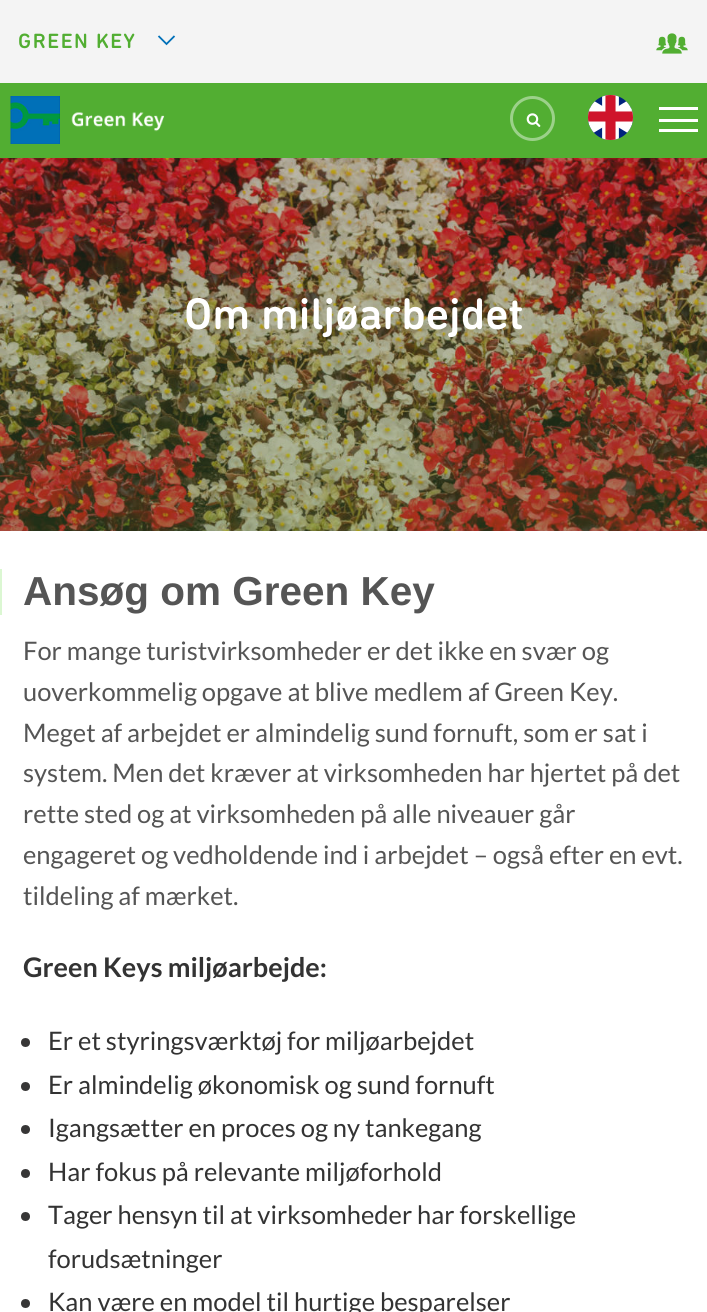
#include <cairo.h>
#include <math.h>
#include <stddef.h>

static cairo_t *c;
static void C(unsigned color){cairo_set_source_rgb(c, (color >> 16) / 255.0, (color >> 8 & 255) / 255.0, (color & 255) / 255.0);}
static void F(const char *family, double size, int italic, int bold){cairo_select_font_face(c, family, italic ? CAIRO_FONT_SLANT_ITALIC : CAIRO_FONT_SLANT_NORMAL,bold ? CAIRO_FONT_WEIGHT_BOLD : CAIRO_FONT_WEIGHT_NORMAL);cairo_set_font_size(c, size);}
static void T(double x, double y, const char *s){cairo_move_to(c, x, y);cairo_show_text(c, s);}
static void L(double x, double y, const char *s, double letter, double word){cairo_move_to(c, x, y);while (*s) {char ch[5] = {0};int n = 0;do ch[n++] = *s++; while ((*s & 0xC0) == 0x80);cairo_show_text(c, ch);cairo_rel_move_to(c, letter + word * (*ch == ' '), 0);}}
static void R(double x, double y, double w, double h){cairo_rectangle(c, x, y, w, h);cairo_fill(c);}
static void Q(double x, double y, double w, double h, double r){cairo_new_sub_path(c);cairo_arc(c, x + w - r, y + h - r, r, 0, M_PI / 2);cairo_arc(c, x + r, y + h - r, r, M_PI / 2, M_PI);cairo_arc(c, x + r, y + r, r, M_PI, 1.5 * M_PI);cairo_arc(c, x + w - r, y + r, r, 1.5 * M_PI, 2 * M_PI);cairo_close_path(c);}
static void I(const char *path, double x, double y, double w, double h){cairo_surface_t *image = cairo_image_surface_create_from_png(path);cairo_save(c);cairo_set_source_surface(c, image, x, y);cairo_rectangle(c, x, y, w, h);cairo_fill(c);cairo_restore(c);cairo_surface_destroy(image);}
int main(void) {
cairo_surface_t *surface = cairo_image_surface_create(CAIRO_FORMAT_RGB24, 707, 1312);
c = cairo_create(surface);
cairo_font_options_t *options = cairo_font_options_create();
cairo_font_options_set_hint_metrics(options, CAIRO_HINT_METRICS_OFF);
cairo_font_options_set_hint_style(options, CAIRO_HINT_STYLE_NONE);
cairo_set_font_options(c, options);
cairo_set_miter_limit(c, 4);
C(0xffffff);
cairo_paint(c);
C(0x52ae32);
R(0,83,707,75);
C(0xf4f4f4);
R(0,0,707,83);
F("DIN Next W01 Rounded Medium",21,0,0);
C(0x52ae32);
L(18,48,"GREEN KEY",1.5,0);
cairo_new_path(c);
cairo_move_to(c,174.5,36);
cairo_line_to(c,166.5,44);
cairo_line_to(c,158.5,36);
C(0x0070b8);
cairo_set_line_width(c,1.8);
cairo_stroke(c);
I("1.png",656,33,32,21);
I("2.png",10,96,155,48);
cairo_arc(c,532.5,118.5,21,0,2 * M_PI);
C(0x9cd18a);
cairo_set_line_width(c,3);
cairo_stroke(c);
I("3.png",526,113,15,14);
C(0x00247d);
cairo_arc(c,610.5,117.5,22.5,0,2 * M_PI);
cairo_fill(c);
cairo_save(c);
Q(588,95,45,45,22.5);
cairo_clip(c);
cairo_new_path(c);
cairo_move_to(c,568.5,91.5);
cairo_line_to(c,652.5,142);
cairo_move_to(c,652.5,91.5);
cairo_line_to(c,568.5,142);
C(0xffffff);
cairo_set_line_width(c,10.1);
cairo_stroke(c);
cairo_new_path(c);
cairo_move_to(c,610.5,91.5);
cairo_line_to(c,610.5,142);
cairo_move_to(c,568.5,116.5);
cairo_line_to(c,652.5,116.5);
cairo_set_line_width(c,16.8);
cairo_stroke(c);
cairo_new_path(c);
cairo_move_to(c,610.5,91.5);
cairo_line_to(c,610.5,142);
cairo_move_to(c,568.5,116.5);
cairo_line_to(c,652.5,116.5);
C(0xcf142b);
cairo_set_line_width(c,10.1);
cairo_stroke(c);
cairo_restore(c);
C(0xffffff);
R(659,107,39,3);
R(659,119,39,3);
R(659,129,39,3);
I("5.png",0,158,707,373);
I("4.png",0,158,707,373);
F("DIN Next W01 Rounded Medium",45,0,0);
T(184,329,"Om miljøarbejdet");
C(0xdbf7d2);
R(0,569,2,46);
F("Liberation Sans",40.5,0,1);
C(0x555555);
T(23,605,"Ansøg om Green Key");
F("Lato",25.5,0,0);
T(23,660,"For mange turistvirksomheder er det ikke en svær og");
T(23,701,"uoverkommelig opgave at blive medlem af Green Key.");
T(23,742,"Meget af arbejdet er almindelig sund fornuft, som er sat i");
T(23,782,"system. Men det kræver at virksomheden har hjertet på det");
T(23,823,"rette sted og at virksomheden på alle niveauer går");
T(23,864,"engageret og vedholdende ind i arbejdet – også efter en evt.");
T(23,905,"tildeling af mærket.");
F("Lato",27,0,1);
C(0x333333);
T(23,977,"Green Keys miljøarbejde:");
C(0x373636);
cairo_new_path(c);
cairo_arc(c,25.5,1042.5,4.5,0,2 * M_PI);
cairo_fill(c);
F("Lato",25.5,0,0);
C(0x333333);
T(48,1050,"Er et styringsværktøj for miljøarbejdet");
C(0x373636);
cairo_new_path(c);
cairo_arc(c,25.5,1086.5,4.5,0,2 * M_PI);
cairo_fill(c);
C(0x333333);
T(48,1094,"Er almindelig økonomisk og sund fornuft");
C(0x373636);
cairo_new_path(c);
cairo_arc(c,25.5,1129.5,4.5,0,2 * M_PI);
cairo_fill(c);
C(0x333333);
T(48,1137,"Igangsætter en proces og ny tankegang");
C(0x373636);
cairo_new_path(c);
cairo_arc(c,25.5,1173.5,4.5,0,2 * M_PI);
cairo_fill(c);
C(0x333333);
T(48,1181,"Har fokus på relevante miljøforhold");
C(0x373636);
cairo_new_path(c);
cairo_arc(c,25.5,1216.5,4.5,0,2 * M_PI);
cairo_fill(c);
C(0x333333);
T(48,1224,"Tager hensyn til at virksomheder har forskellige");
T(48,1268,"forudsætninger");
C(0x373636);
cairo_new_path(c);
cairo_arc(c,25.5,1303.5,4.5,0,2 * M_PI);
cairo_fill(c);
C(0x333333);
T(48,1311,"Kan være en model til hurtige besparelser");
cairo_surface_write_to_png(surface, "o.png");
cairo_font_options_destroy(options);
cairo_destroy(c);
cairo_surface_destroy(surface);
return 0;
}
